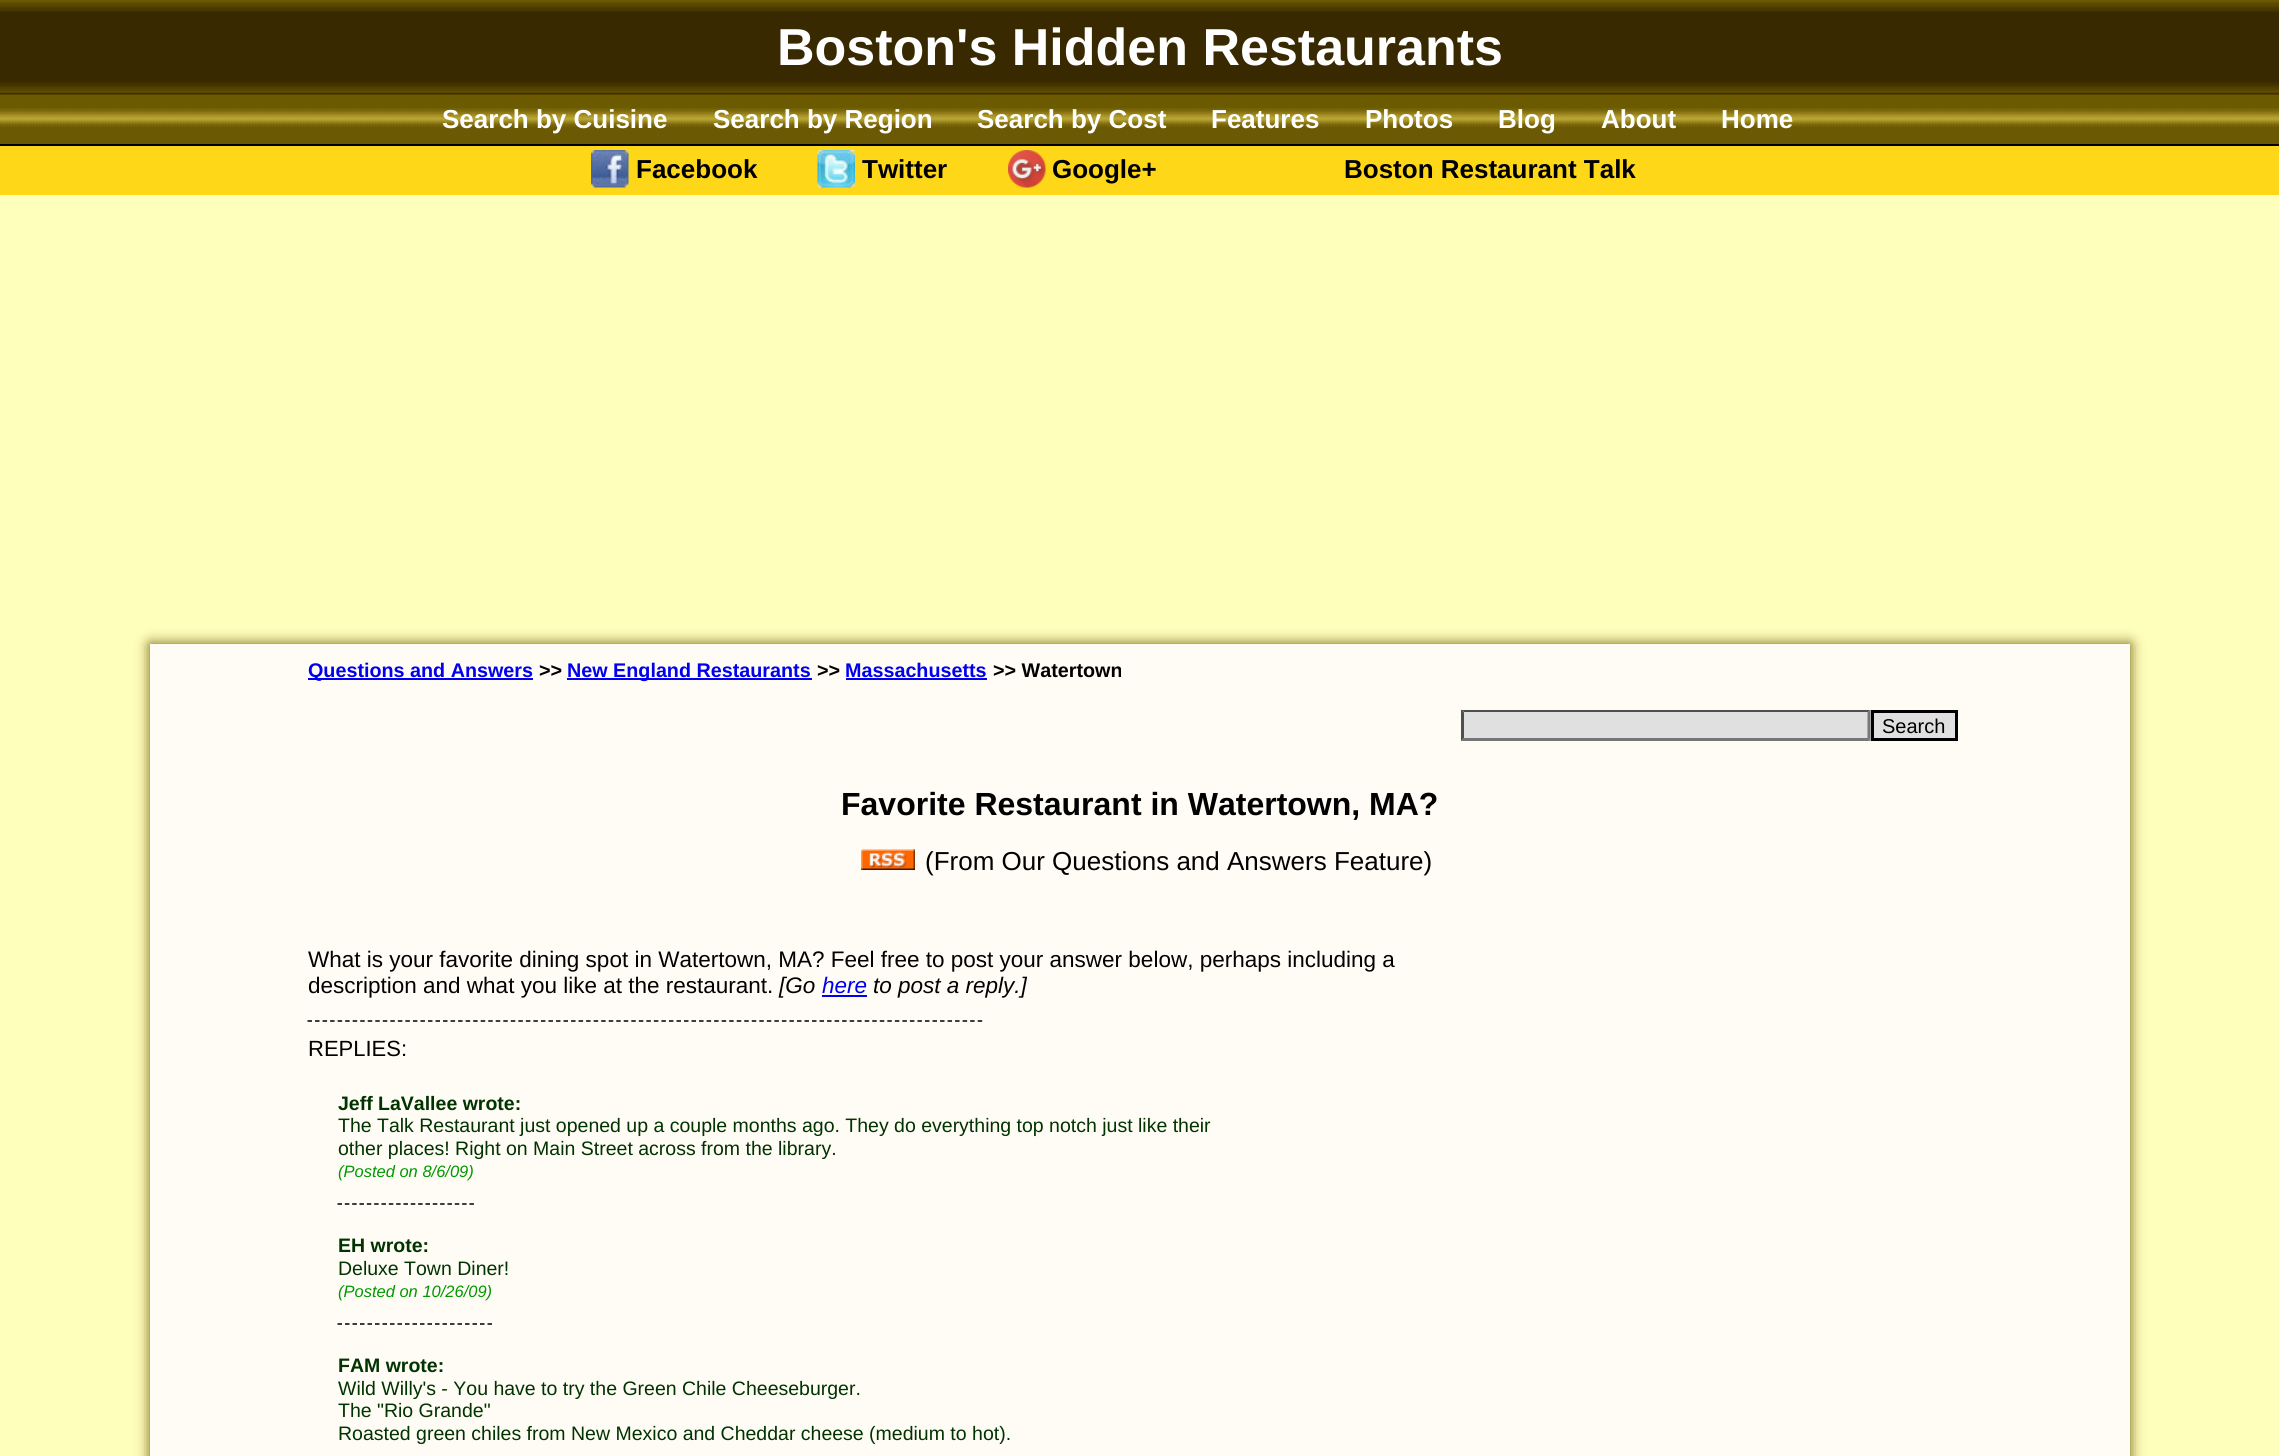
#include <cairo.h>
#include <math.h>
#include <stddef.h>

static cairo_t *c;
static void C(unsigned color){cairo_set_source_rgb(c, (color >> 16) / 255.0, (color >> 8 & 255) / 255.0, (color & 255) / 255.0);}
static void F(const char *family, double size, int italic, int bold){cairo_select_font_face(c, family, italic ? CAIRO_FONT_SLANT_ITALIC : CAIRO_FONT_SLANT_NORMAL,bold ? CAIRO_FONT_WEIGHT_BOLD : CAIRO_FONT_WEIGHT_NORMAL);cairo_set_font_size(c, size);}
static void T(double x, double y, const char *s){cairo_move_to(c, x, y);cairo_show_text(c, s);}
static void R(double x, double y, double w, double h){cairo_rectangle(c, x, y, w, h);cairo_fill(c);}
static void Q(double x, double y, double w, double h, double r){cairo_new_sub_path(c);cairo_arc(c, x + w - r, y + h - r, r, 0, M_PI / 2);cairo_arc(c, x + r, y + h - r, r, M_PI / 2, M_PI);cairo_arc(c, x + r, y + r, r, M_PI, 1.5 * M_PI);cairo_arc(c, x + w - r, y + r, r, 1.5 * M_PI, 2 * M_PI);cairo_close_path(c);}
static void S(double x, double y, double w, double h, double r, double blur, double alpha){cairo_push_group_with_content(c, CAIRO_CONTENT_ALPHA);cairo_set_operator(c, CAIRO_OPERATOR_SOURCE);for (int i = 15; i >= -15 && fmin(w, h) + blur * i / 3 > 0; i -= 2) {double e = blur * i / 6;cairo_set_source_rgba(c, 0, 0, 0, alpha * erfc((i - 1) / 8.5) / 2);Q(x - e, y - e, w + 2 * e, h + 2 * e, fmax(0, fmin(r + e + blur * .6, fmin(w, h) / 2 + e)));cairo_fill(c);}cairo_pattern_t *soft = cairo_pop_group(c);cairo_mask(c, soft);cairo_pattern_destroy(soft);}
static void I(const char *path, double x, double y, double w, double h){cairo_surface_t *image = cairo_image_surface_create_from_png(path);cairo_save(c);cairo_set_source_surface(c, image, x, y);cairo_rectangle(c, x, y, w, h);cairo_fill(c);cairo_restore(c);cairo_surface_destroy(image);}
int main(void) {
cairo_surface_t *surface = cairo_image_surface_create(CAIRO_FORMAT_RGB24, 2279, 1456);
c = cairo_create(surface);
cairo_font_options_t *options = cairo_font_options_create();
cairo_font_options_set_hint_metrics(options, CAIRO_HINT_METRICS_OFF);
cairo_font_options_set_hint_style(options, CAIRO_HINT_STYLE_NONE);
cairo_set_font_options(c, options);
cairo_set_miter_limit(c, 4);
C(0xffffbc);
cairo_paint(c);
C(0x3c2d06);
R(0,94,2279,1);
I("1.png",0,0,2279,94);
F("Liberation Sans",52,0,1);
C(0xffffff);
T(777,65,"Boston's Hidden Restaurants");
C(0x6b5904);
R(0,127,2279,17);
I("2.png",0,94,2279,33);
C(0x000000);
R(0,144,2279,2);
F("Liberation Sans",26,0,1);
C(0xffffff);
T(442,128,"Search by Cuisine");
T(713,128,"Search by Region");
T(977,128,"Search by Cost");
T(1211,128,"Features");
T(1365,128,"Photos");
T(1498,128,"Blog");
T(1601,128,"About");
T(1721,128,"Home");
C(0xfdd718);
R(0,146,2279,49);
I("3.png",591,150,38,38);
C(0x000000);
T(636,178,"Facebook");
I("4.png",817,150,38,38);
T(862,178,"Twitter");
I("5.png",1008,150,38,38);
T(1052,178,"Google+");
T(1344,178,"Boston Restaurant Talk");
C(0x6c5b06);
S(150,644,1980,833,0,7,1);
C(0xfffcf5);
R(150,644,1980,812);
C(0x0000ee);
R(308,678,225,2);
F("Liberation Sans",19.75,0,1);
T(308,677,"Questions and Answers");
C(0x000000);
T(539,677,">>");
C(0x0000ee);
R(567,678,245,2);
T(567,677,"New England Restaurants");
C(0x000000);
T(817,677,">>");
C(0x0000ee);
T(845,677,"Massachusetts");
R(846,678,141,2);
C(0x000000);
T(993,677,">> Watertown");
C(0xe0e0e0);
R(1461,710,410,31);
C(0x4f4f4f);
cairo_new_path(c);
cairo_move_to(c,1461,710);
cairo_line_to(c,1870,710);
cairo_line_to(c,1868,712);
cairo_line_to(c,1464,712);
cairo_close_path(c);
cairo_fill(c);
C(0x767676);
cairo_new_path(c);
cairo_move_to(c,1870.5,709.5);
cairo_line_to(c,1870.5,741);
cairo_line_to(c,1867.5,738);
cairo_line_to(c,1867.5,712.5);
cairo_close_path(c);
cairo_fill(c);
cairo_new_path(c);
cairo_move_to(c,1870,741);
cairo_line_to(c,1461,741);
cairo_line_to(c,1464,738);
cairo_line_to(c,1868,738);
cairo_close_path(c);
cairo_fill(c);
C(0x4f4f4f);
cairo_new_path(c);
cairo_move_to(c,1461,741);
cairo_line_to(c,1461,709.5);
cairo_line_to(c,1464,712.5);
cairo_line_to(c,1464,738);
cairo_close_path(c);
cairo_fill(c);
C(0xe0e0e0);
cairo_rectangle(c,1872.5,711.5,84,28);
cairo_fill_preserve(c);
C(0x000000);
cairo_set_line_width(c,3);
cairo_stroke(c);
F("Liberation Sans",20,0,0);
T(1882,733,"Search");
F("Liberation Sans",32,0,1);
T(841,815,"Favorite Restaurant in Watertown, MA?");
I("6.png",861,849,54,21);
F("Liberation Sans",26,0,0);
T(925,870,"(From Our Questions and Answers Feature)");
F("Liberation Sans",22.5,0,0);
T(308,967,"What is your favorite dining spot in Watertown, MA? Feel free to post your answer below, perhaps including a");
T(308,993,"description and what you like at the restaurant.");
F("Liberation Sans",22.5,1,0);
T(779,993,"[Go");
C(0x0000ee);
T(822,993,"here");
R(822,995,45,2);
C(0x000000);
T(873,993,"to post a reply.]");
cairo_new_path(c);
cairo_move_to(c,307.5,1021);
cairo_line_to(c,982.5,1021);
cairo_set_line_width(c,1.5);
cairo_set_dash(c,(double[]){4.5,3.03},2,0);
cairo_stroke(c);
F("Liberation Sans",22,0,0);
T(308,1056,"REPLIES:");
F("Liberation Sans",19.5,0,1);
C(0x003300);
T(338,1110,"Jeff LaVallee wrote:");
F("Liberation Sans",19.5,0,0);
T(338,1132,"The Talk Restaurant just opened up a couple months ago. They do everything top notch just like their");
T(338,1155,"other places! Right on Main Street across from the library.");
F("Liberation Sans",16.5,1,0);
C(0x009900);
T(338,1177,"(Posted on 8/6/09)");
cairo_new_path(c);
cairo_move_to(c,337.5,1204);
cairo_line_to(c,474,1204);
C(0x000000);
cairo_set_dash(c,(double[]){4.5,2.83},2,0);
cairo_stroke(c);
F("Liberation Sans",19.5,0,1);
C(0x003300);
T(338,1252,"EH wrote:");
F("Liberation Sans",19.5,0,0);
T(338,1275,"Deluxe Town Diner!");
F("Liberation Sans",16.5,1,0);
C(0x009900);
T(338,1297,"(Posted on 10/26/09)");
cairo_new_path(c);
cairo_move_to(c,337.5,1324);
cairo_line_to(c,492,1324);
C(0x000000);
cairo_set_dash(c,(double[]){4.5,3},2,0);
cairo_stroke(c);
F("Liberation Sans",19.5,0,1);
C(0x003300);
T(338,1372,"FAM wrote:");
F("Liberation Sans",19.5,0,0);
T(338,1395,"Wild Willy's - You have to try the Green Chile Cheeseburger.");
T(338,1417,"The \"Rio Grande\"");
T(338,1440,"Roasted green chiles from New Mexico and Cheddar cheese (medium to hot).");
cairo_surface_write_to_png(surface, "o.png");
cairo_font_options_destroy(options);
cairo_destroy(c);
cairo_surface_destroy(surface);
return 0;
}
